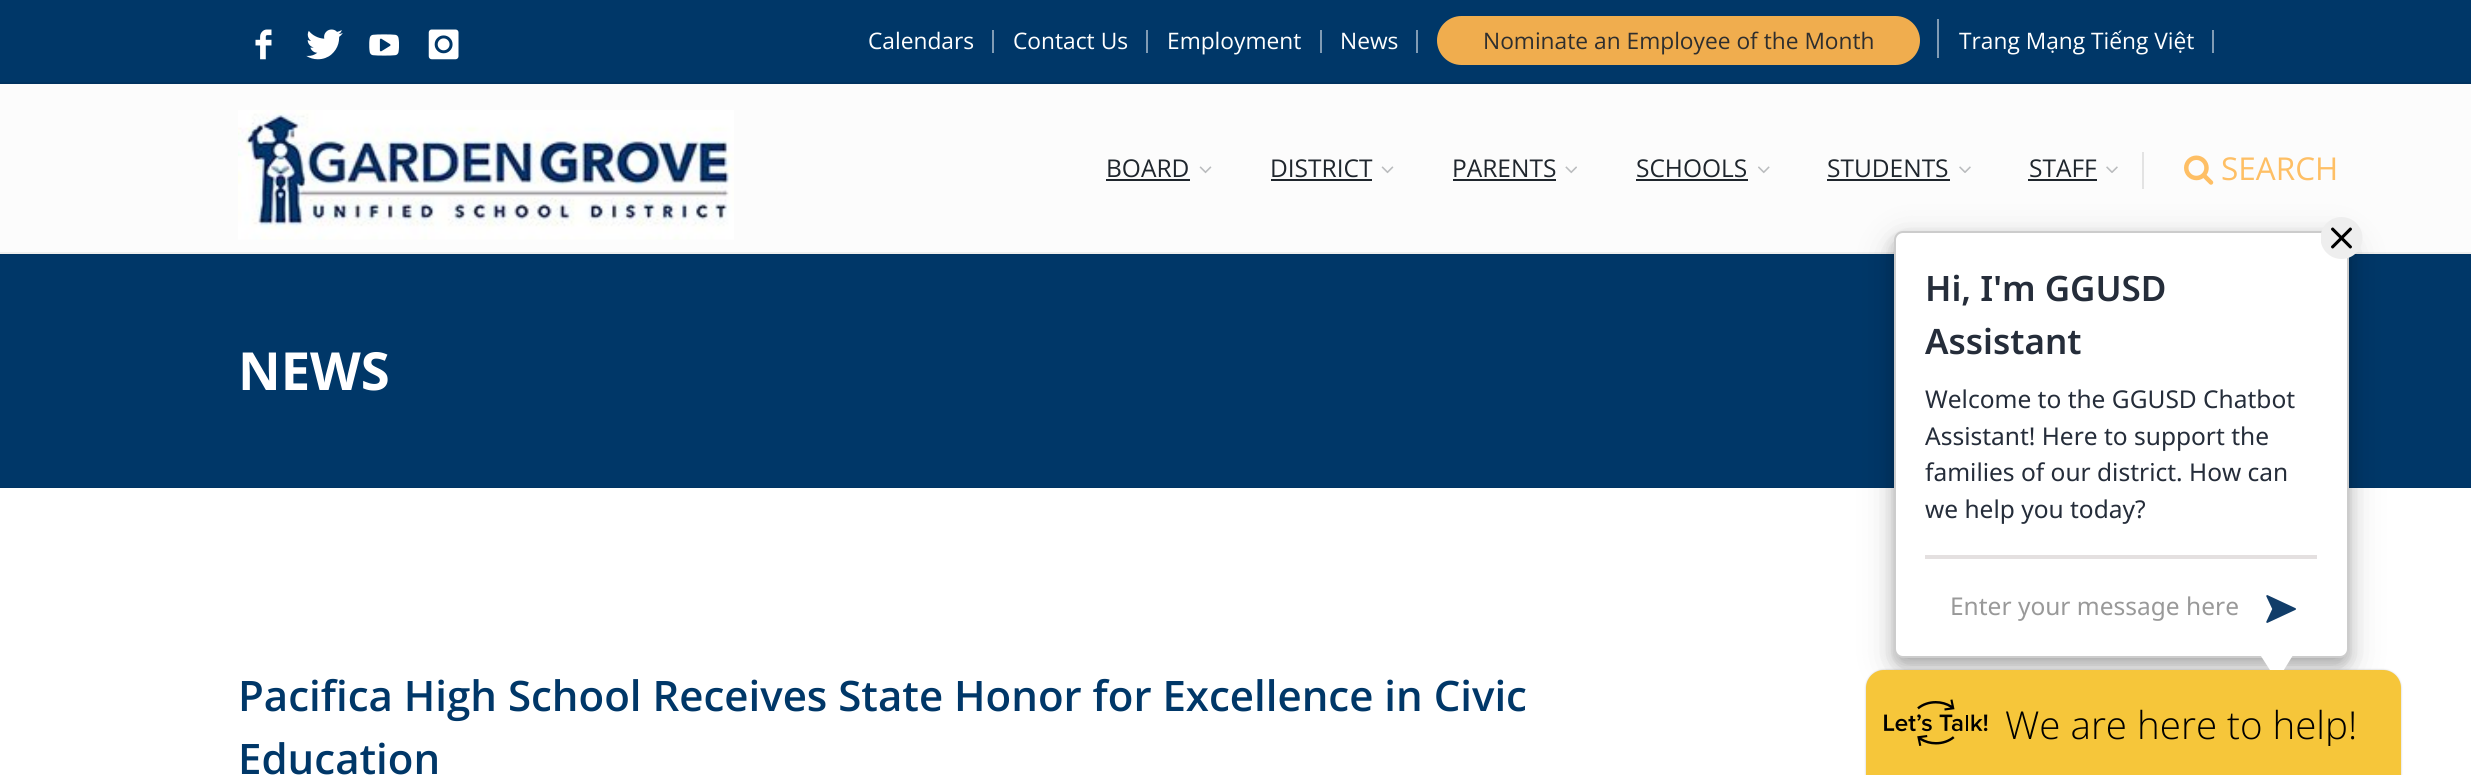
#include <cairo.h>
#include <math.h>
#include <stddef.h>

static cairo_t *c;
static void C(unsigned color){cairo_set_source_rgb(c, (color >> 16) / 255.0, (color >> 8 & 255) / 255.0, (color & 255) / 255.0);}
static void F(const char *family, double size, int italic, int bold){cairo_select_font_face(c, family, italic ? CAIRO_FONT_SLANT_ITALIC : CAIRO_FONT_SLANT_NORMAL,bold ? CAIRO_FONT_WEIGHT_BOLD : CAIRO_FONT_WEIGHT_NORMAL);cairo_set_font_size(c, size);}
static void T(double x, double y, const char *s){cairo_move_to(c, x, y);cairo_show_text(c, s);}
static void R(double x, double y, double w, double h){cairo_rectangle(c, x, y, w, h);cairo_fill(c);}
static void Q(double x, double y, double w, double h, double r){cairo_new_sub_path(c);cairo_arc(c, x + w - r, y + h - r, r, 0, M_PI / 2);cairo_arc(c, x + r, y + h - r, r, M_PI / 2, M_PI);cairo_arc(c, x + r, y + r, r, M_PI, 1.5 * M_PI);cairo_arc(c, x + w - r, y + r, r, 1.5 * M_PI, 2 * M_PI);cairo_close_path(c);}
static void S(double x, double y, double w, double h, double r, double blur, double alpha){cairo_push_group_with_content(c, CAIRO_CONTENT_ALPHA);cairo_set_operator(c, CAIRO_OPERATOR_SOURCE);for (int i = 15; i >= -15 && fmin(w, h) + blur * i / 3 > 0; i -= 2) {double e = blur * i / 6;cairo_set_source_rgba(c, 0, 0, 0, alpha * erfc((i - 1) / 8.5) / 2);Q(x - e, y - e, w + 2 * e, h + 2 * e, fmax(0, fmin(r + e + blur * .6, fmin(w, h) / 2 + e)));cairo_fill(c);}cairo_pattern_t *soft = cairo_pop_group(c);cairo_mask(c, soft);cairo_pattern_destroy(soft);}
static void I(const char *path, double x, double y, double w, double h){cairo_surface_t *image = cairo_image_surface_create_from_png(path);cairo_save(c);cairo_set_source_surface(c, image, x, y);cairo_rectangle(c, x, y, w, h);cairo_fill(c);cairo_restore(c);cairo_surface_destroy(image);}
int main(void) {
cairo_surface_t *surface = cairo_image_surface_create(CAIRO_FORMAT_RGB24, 2471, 775);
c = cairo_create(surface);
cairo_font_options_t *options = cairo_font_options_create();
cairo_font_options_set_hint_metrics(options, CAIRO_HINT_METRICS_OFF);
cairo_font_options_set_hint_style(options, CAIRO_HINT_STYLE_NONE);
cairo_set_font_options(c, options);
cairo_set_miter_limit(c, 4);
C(0x003768);
cairo_paint(c);
C(0x003463);
R(0,82,2471,2);
I("1.png",255,29,17,31);
I("2.png",306,29,37,31);
I("3.png",369,34,30,22);
I("4.png",428,29,31,31);
C(0x809bb4);
R(992,30,2,23);
F("Open Sans",22.75,0,0);
C(0xffffff);
T(868,49,"Calendars");
C(0x809bb4);
R(1146,30,2,23);
C(0xffffff);
T(1013,49,"Contact Us");
C(0x809bb4);
R(1320,30,2,23);
C(0xffffff);
T(1167,49,"Employment");
C(0x809bb4);
R(1416,30,2,23);
C(0xffffff);
T(1340,49,"News");
C(0xf0ad4e);
Q(1437,16,483,49,24.5);
cairo_fill(c);
C(0x2e2e2e);
T(1483,49,"Nominate an Employee of the Month");
C(0x809bb4);
R(1937,19,2,39);
R(2212,30,2,23);
C(0xffffff);
T(1959,49,"Trang Mạng Tiếng Việt");
C(0x000000);
S(0,84,2471,170,0,2,.1);
C(0xfcfcfc);
R(0,84,2471,168);
C(0xefefef);
R(0,252,2471,2);
I("5.png",238,110,496,130);
F("Open Sans",24.5,0,0);
C(0x1f262d);
T(1106,177,"BOARD");
R(1106,179,84,2);
I("6.png",1199,166,13,8);
T(1270,177,"DISTRICT");
R(1271,179,101,2);
I("6.png",1381,166,13,8);
T(1452,177,"PARENTS");
R(1453,179,103,2);
I("7.png",1565,166,12,8);
T(1636,177,"SCHOOLS");
R(1636,179,112,2);
I("8.png",1758,166,12,8);
T(1827,177,"STUDENTS");
R(1827,179,123,2);
I("9.png",1959,166,12,7);
T(2029,177,"STAFF");
R(2028,179,69,2);
I("9.png",2106,166,12,7);
C(0xe3e3e3);
R(2142,152,2,37);
I("10.png",2184,155,30,30);
F("Open Sans",31.5,0,0);
C(0xfebf65);
T(2221,180,"SEARCH");
C(0x003463);
R(0,487,2471,1);
F("Open Sans",52.5,0,1);
C(0xffffff);
T(238,390,"NEWS");
R(0,488,2471,287);
F("Open Sans SemiBold",42,0,0);
C(0x003768);
T(238,711,"Pacifica High School Receives State Honor for Excellence in Civic");
T(238,774,"Education");
C(0x000000);
S(1866,670,535,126,18,1,.22);
S(1894,242,455,427,9,17.5,.19);
S(1894,238,455,427,9,7,.2);
C(0xffffff);
Q(1895,232,453,425,8);
cairo_fill_preserve(c);
C(0xcccccc);
cairo_stroke(c);
I("11.png",2321,217,42,42);
F("Noto Sans SemiBold",35,0,0);
C(0x252d3a);
T(1925,301,"Hi, I'm GGUSD");
T(1925,354,"Assistant");
C(0xe4e0e0);
R(1925,555,392,4);
F("Noto Sans",24.5,0,0);
C(0x252d3a);
T(1925,408,"Welcome to the GGUSD Chatbot");
T(1925,445,"Assistant! Here to support the");
T(1925,481,"families of our district. How can");
T(1925,518,"we help you today?");
C(0x999999);
T(1950,615,"Enter your message here");
I("12.png",2266,595,30,28);
C(0xffffff);
cairo_new_path(c);
cairo_move_to(c,2250,639);
cairo_line_to(c,2303,639);
cairo_line_to(c,2277,681);
cairo_close_path(c);
cairo_fill(c);
C(0xf6c63a);
cairo_new_path(c);
cairo_move_to(c,1884,670);
cairo_line_to(c,2383,670);
cairo_curve_to(c,2393,670,2401,678,2401,688);
cairo_line_to(c,2401,775);
cairo_line_to(c,1866,775);
cairo_line_to(c,1866,688);
cairo_curve_to(c,1866,678,1874,670,1884,670);
cairo_close_path(c);
cairo_fill(c);
I("13.png",1884,699,104,47);
cairo_save(c);
cairo_rectangle(c,2006,700,351,46);
cairo_clip(c);
F("Open Sans Light",38.5,0,0);
C(0x000000);
T(2005,739,"We are here to help!");
cairo_restore(c);
cairo_surface_write_to_png(surface, "o.png");
cairo_font_options_destroy(options);
cairo_destroy(c);
cairo_surface_destroy(surface);
return 0;
}
